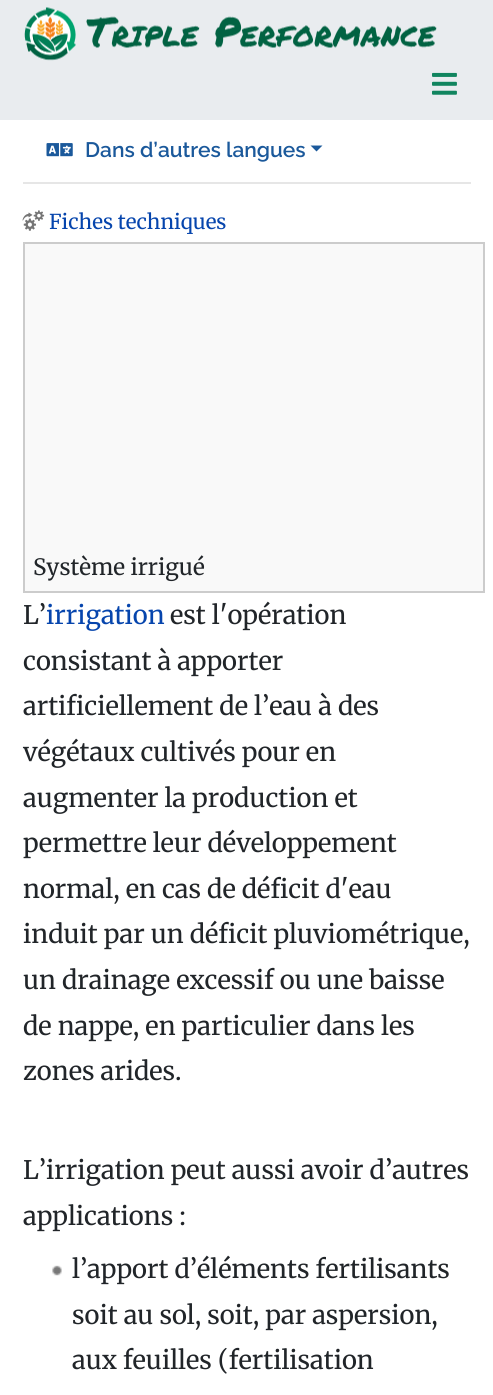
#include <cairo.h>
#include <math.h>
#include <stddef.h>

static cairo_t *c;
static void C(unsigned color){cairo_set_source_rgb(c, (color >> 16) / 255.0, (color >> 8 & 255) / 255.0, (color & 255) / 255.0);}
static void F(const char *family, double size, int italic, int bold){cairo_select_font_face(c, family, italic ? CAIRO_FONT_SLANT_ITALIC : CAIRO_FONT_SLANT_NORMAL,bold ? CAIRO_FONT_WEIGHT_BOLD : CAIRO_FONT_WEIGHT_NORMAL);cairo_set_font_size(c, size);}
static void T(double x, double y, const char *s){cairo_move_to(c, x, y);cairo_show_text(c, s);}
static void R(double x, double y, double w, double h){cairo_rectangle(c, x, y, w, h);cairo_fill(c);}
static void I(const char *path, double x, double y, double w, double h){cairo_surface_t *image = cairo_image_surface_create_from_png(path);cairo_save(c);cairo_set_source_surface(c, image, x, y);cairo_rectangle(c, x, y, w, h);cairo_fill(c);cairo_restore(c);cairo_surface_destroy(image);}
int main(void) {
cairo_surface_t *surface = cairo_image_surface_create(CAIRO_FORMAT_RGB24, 493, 1395);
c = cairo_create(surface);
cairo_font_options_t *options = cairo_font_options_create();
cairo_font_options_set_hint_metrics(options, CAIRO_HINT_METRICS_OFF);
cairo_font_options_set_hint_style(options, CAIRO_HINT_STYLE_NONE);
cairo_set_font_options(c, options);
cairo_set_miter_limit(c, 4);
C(0xffffff);
cairo_paint(c);
C(0xe9ecef);
R(0,0,493,120);
I("1.png",24,7,413,54);
I("2.png",432,72,25,23);
C(0xe6e6e6);
R(23,182,448,2);
I("3.png",46,143,27,14);
F("Raleway SemiBold",21,0,0);
C(0x1b599b);
T(85,157,"Dans d’autres langues");
cairo_new_path(c);
cairo_move_to(c,310.5,145.5);
cairo_line_to(c,322.5,145.5);
cairo_line_to(c,316.5,151.5);
cairo_close_path(c);
cairo_fill(c);
I("4.png",22,210,23,21);
F("Merriweather Light",20.5,0,0);
C(0x0645ad);
T(49,229,"Fiches techniques");
C(0xf9f9f9);
R(25,244,458,347);
C(0xcccccc);
R(23,242,462,2);
R(23,591,462,2);
R(483,242,2,351);
R(23,242,2,351);
F("Merriweather Light",22.5,0,0);
C(0x212529);
T(33,575,"Système irrigué");
F("Merriweather Light",25.5,0,0);
T(23,624,"L’");
C(0x0645ad);
T(46,624,"irrigation");
C(0x212529);
T(170,624,"est l'opération");
T(23,670,"consistant à apporter");
T(23,715,"artificiellement de l’eau à des");
T(23,761,"végétaux cultivés pour en");
T(23,807,"augmenter la production et");
T(23,852,"permettre leur développement");
T(23,898,"normal, en cas de déficit d'eau");
T(23,943,"induit par un déficit pluviométrique,");
T(23,989,"un drainage excessif ou une baisse");
T(23,1035,"de nappe, en particulier dans les");
T(23,1080,"zones arides.");
T(23,1179,"L’irrigation peut aussi avoir d’autres");
T(23,1225,"applications :");
I("5.png",52,1265,10,11);
T(72,1278,"l’apport d’éléments fertilisants");
T(72,1324,"soit au sol, soit, par aspersion,");
T(72,1369,"aux feuilles (fertilisation");
cairo_surface_write_to_png(surface, "o.png");
cairo_font_options_destroy(options);
cairo_destroy(c);
cairo_surface_destroy(surface);
return 0;
}
